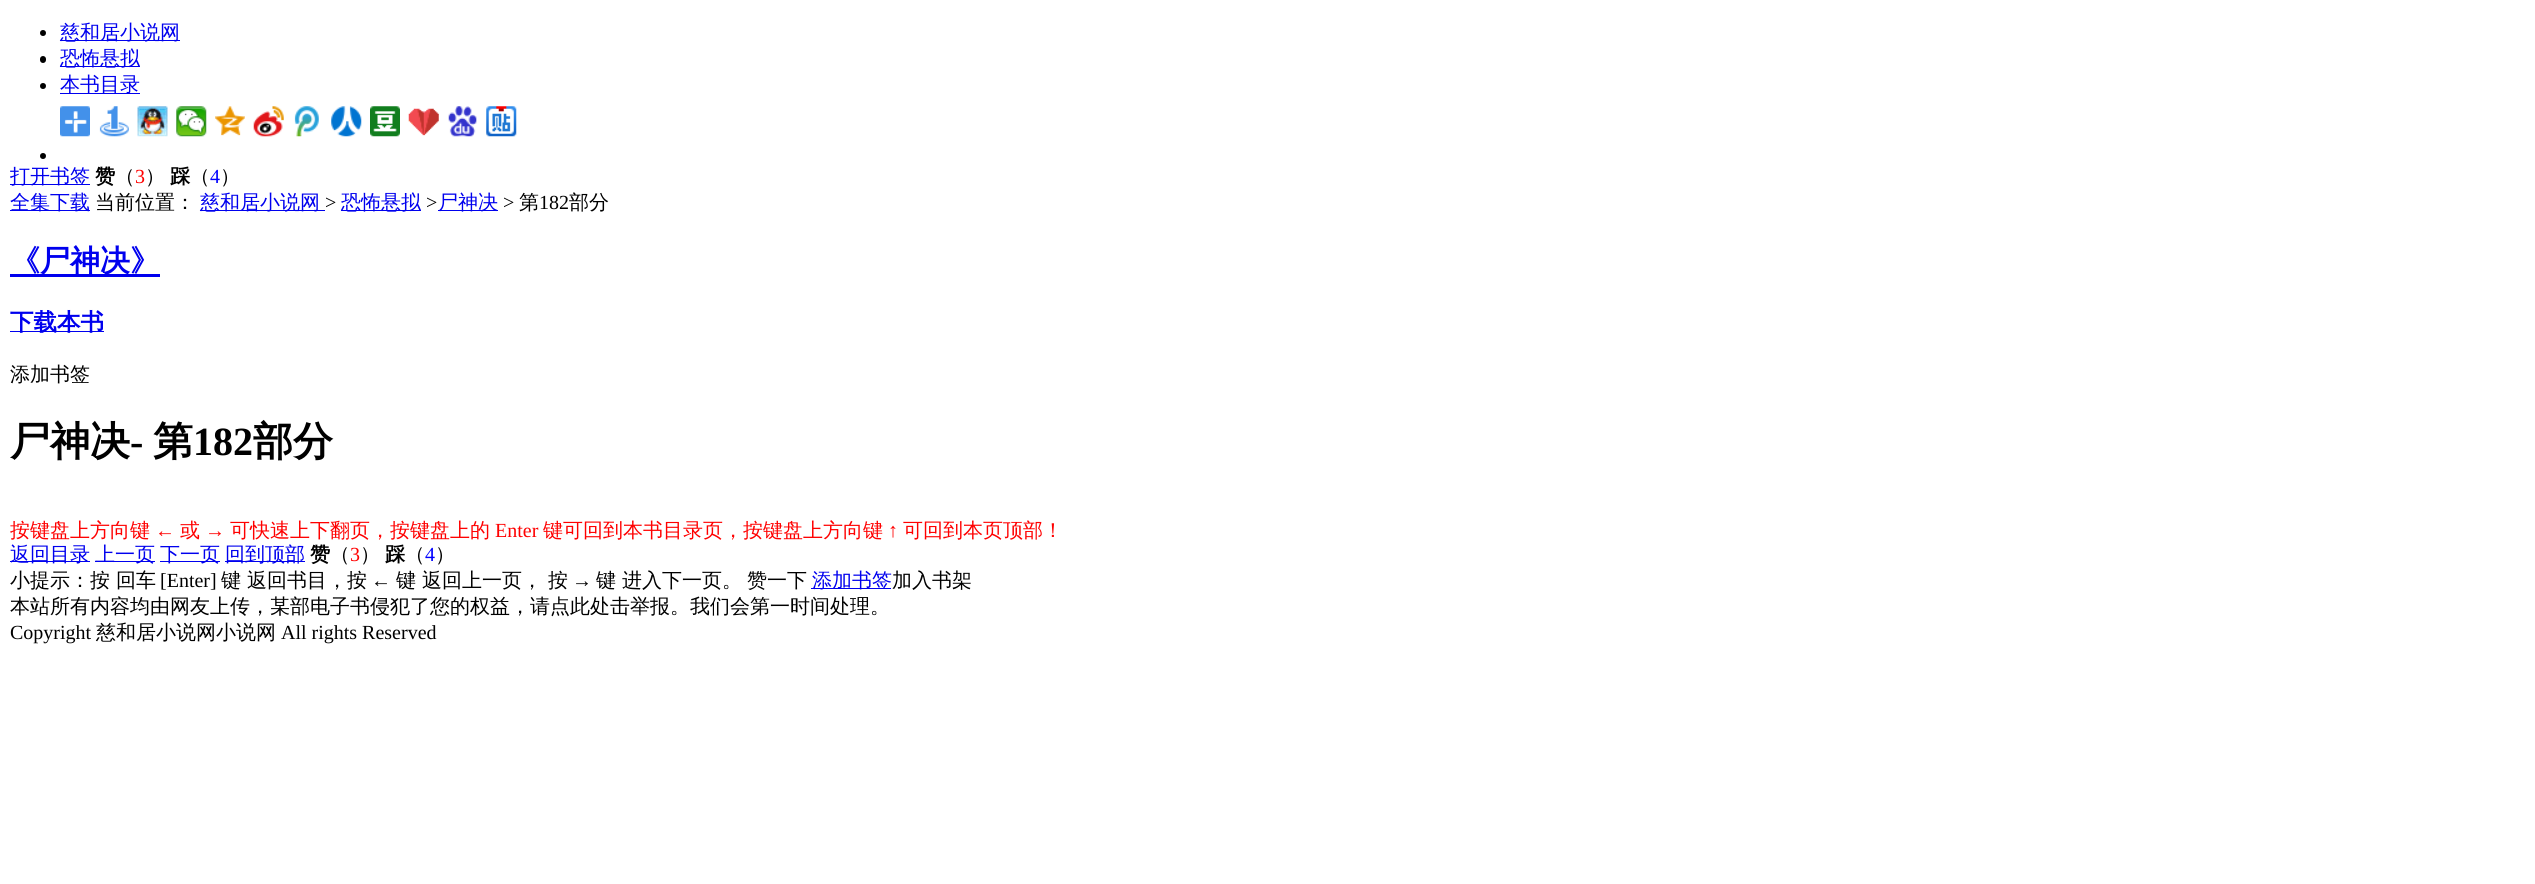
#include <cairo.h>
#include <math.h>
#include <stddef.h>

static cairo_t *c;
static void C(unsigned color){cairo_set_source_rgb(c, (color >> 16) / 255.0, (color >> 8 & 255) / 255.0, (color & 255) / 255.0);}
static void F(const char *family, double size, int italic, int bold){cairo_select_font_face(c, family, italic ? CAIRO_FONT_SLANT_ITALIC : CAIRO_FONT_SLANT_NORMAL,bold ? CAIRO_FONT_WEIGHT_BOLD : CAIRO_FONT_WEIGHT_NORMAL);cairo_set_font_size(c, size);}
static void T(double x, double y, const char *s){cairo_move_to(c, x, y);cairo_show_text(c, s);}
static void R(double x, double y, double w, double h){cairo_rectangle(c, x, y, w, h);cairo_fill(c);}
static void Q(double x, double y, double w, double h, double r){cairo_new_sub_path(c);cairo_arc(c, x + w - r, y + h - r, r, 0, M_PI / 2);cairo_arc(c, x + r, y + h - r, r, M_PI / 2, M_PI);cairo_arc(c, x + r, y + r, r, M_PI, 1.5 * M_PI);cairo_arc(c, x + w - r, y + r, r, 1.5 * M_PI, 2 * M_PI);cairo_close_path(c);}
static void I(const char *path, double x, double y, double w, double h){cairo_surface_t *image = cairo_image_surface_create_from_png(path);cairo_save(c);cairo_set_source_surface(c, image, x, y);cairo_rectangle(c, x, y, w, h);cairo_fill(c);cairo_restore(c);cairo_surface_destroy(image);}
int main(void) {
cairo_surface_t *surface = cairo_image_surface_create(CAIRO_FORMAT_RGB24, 2535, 884);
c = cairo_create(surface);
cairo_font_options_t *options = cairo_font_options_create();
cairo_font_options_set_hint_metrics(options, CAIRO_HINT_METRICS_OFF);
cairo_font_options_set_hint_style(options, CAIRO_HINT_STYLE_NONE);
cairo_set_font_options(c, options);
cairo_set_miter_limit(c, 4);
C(0xffffff);
cairo_paint(c);
C(0x000000);
cairo_arc(c,43,33,3,0,2 * M_PI);
cairo_fill(c);
C(0x0000ee);
R(60,40,120,1);
F("WenQuanYi Zen Hei Medium",20,0,0);
T(60,39,"慈和居小说网");
C(0x000000);
Q(40,56,6,7,3);
cairo_fill(c);
C(0x0000ee);
R(60,66,80,1);
T(60,65,"恐怖悬拟");
C(0x000000);
cairo_new_path(c);
cairo_arc(c,43,86,3,0,2 * M_PI);
cairo_fill(c);
C(0x0000ee);
R(60,93,80,1);
T(60,91,"本书目录");
I("1.png",60,106,30,31);
I("2.png",99,106,30,31);
I("3.png",137,106,31,31);
I("4.png",176,106,31,31);
I("5.png",215,106,30,30);
I("6.png",253,106,31,31);
I("7.png",294,106,25,31);
I("8.png",331,106,31,31);
I("9.png",370,106,30,31);
I("10.png",408,108,31,28);
I("11.png",448,106,29,31);
I("12.png",486,106,31,31);
C(0x000000);
cairo_arc(c,43,156,3,0,2 * M_PI);
cairo_fill(c);
C(0x0000ee);
R(10,184,80,1);
T(10,183,"打开书签");
F("WenQuanYi Zen Hei",20,0,1);
C(0x000000);
T(95,183,"赞");
F("WenQuanYi Zen Hei Medium",20,0,0);
T(115,183,"（");
F("Liberation Serif",20,0,0);
C(0xff0000);
T(135,183,"3");
F("WenQuanYi Zen Hei Medium",20,0,0);
C(0x000000);
T(145,183,"）");
F("WenQuanYi Zen Hei",20,0,1);
T(170,183,"踩");
F("WenQuanYi Zen Hei Medium",20,0,0);
T(190,183,"（");
F("Liberation Serif",20,0,0);
C(0x0000ff);
T(210,183,"4");
F("WenQuanYi Zen Hei Medium",20,0,0);
C(0x000000);
T(220,183,"）");
C(0x0000ee);
R(10,210,80,1);
T(10,209,"全集下载");
C(0x000000);
T(95,209,"当前位置：");
C(0x0000ee);
R(200,210,125,1);
T(200,209,"慈和居小说网");
F("Liberation Serif",20,0,0);
C(0x000000);
T(325,209,">");
C(0x0000ee);
R(341,210,80,1);
F("WenQuanYi Zen Hei Medium",20,0,0);
T(341,209,"恐怖悬拟");
F("Liberation Serif",20,0,0);
C(0x000000);
T(426,209,">");
C(0x0000ee);
R(438,210,60,1);
F("WenQuanYi Zen Hei Medium",20,0,0);
T(438,209,"尸神决");
F("Liberation Serif",20,0,0);
C(0x000000);
T(503,209,">");
F("WenQuanYi Zen Hei Medium",20,0,0);
T(519,209,"第");
F("Liberation Serif",20,0,0);
T(539,209,"182");
F("WenQuanYi Zen Hei Medium",20,0,0);
T(569,209,"部分");
C(0x0000ee);
R(10,274,150,3);
F("WenQuanYi Zen Hei",30,0,1);
T(10,271,"《尸神决》");
R(10,331,94,1);
F("WenQuanYi Zen Hei",23.5,0,1);
T(10,330,"下载本书");
F("WenQuanYi Zen Hei Medium",20,0,0);
C(0x000000);
T(10,381,"添加书签");
F("WenQuanYi Zen Hei",40,0,1);
T(10,455,"尸神决");
F("Liberation Serif",40,0,1);
T(130,455,"-");
F("WenQuanYi Zen Hei",40,0,1);
T(153,455,"第");
F("Liberation Serif",40,0,1);
T(193,455,"182");
F("WenQuanYi Zen Hei",40,0,1);
T(253,455,"部分");
F("WenQuanYi Zen Hei Medium",20,0,0);
C(0xff0000);
T(10,537,"按键盘上方向键");
F("Liberation Serif",20,0,0);
T(155,537,"←");
F("WenQuanYi Zen Hei Medium",20,0,0);
T(180,537,"或");
F("Liberation Serif",20,0,0);
T(205,537,"→");
F("WenQuanYi Zen Hei Medium",20,0,0);
T(230,537,"可快速上下翻页，按键盘上的");
F("Liberation Serif",20,0,0);
T(495,537,"Enter");
F("WenQuanYi Zen Hei Medium",20,0,0);
T(543,537,"键可回到本书目录页，按键盘上方向键");
F("Liberation Serif",20,0,0);
T(888,537,"↑");
F("WenQuanYi Zen Hei Medium",20,0,0);
T(903,537,"可回到本页顶部！");
C(0x0000ee);
R(10,561,80,1);
T(10,561,"返回目录");
R(95,561,60,1);
T(95,561,"上一页");
R(160,561,60,1);
T(160,561,"下一页");
R(225,561,80,1);
T(225,561,"回到顶部");
F("WenQuanYi Zen Hei",20,0,1);
C(0x000000);
T(310,561,"赞");
F("WenQuanYi Zen Hei Medium",20,0,0);
T(330,561,"（");
F("Liberation Serif",20,0,0);
C(0xff0000);
T(350,561,"3");
F("WenQuanYi Zen Hei Medium",20,0,0);
C(0x000000);
T(360,561,"）");
F("WenQuanYi Zen Hei",20,0,1);
T(385,561,"踩");
F("WenQuanYi Zen Hei Medium",20,0,0);
T(405,561,"（");
F("Liberation Serif",20,0,0);
C(0x0000ff);
T(425,561,"4");
F("WenQuanYi Zen Hei Medium",20,0,0);
C(0x000000);
T(435,561,"）");
T(10,587,"小提示：按 回车");
F("Liberation Serif",20,0,0);
T(160,587,"[Enter]");
F("WenQuanYi Zen Hei Medium",20,0,0);
T(221,587,"键 返回书目，按");
F("Liberation Serif",20,0,0);
T(371,587,"←");
F("WenQuanYi Zen Hei Medium",20,0,0);
T(396,587,"键 返回上一页， 按");
F("Liberation Serif",20,0,0);
T(572,587,"→");
F("WenQuanYi Zen Hei Medium",20,0,0);
T(596,587,"键 进入下一页。");
T(747,587,"赞一下");
C(0x0000ee);
R(811,588,80,1);
T(812,587,"添加书签");
C(0x000000);
T(892,587,"加入书架");
T(10,613,"本站所有内容均由网友上传，某部电子书侵犯了您的权益，请点此处击举报。我们会第一时间处理。");
F("Liberation Serif",20,0,0);
T(10,639,"Copyright");
F("WenQuanYi Zen Hei Medium",20,0,0);
T(96,639,"慈和居小说网小说网");
F("Liberation Serif",20,0,0);
T(281,639,"All rights Reserved");
cairo_surface_write_to_png(surface, "o.png");
cairo_font_options_destroy(options);
cairo_destroy(c);
cairo_surface_destroy(surface);
return 0;
}
